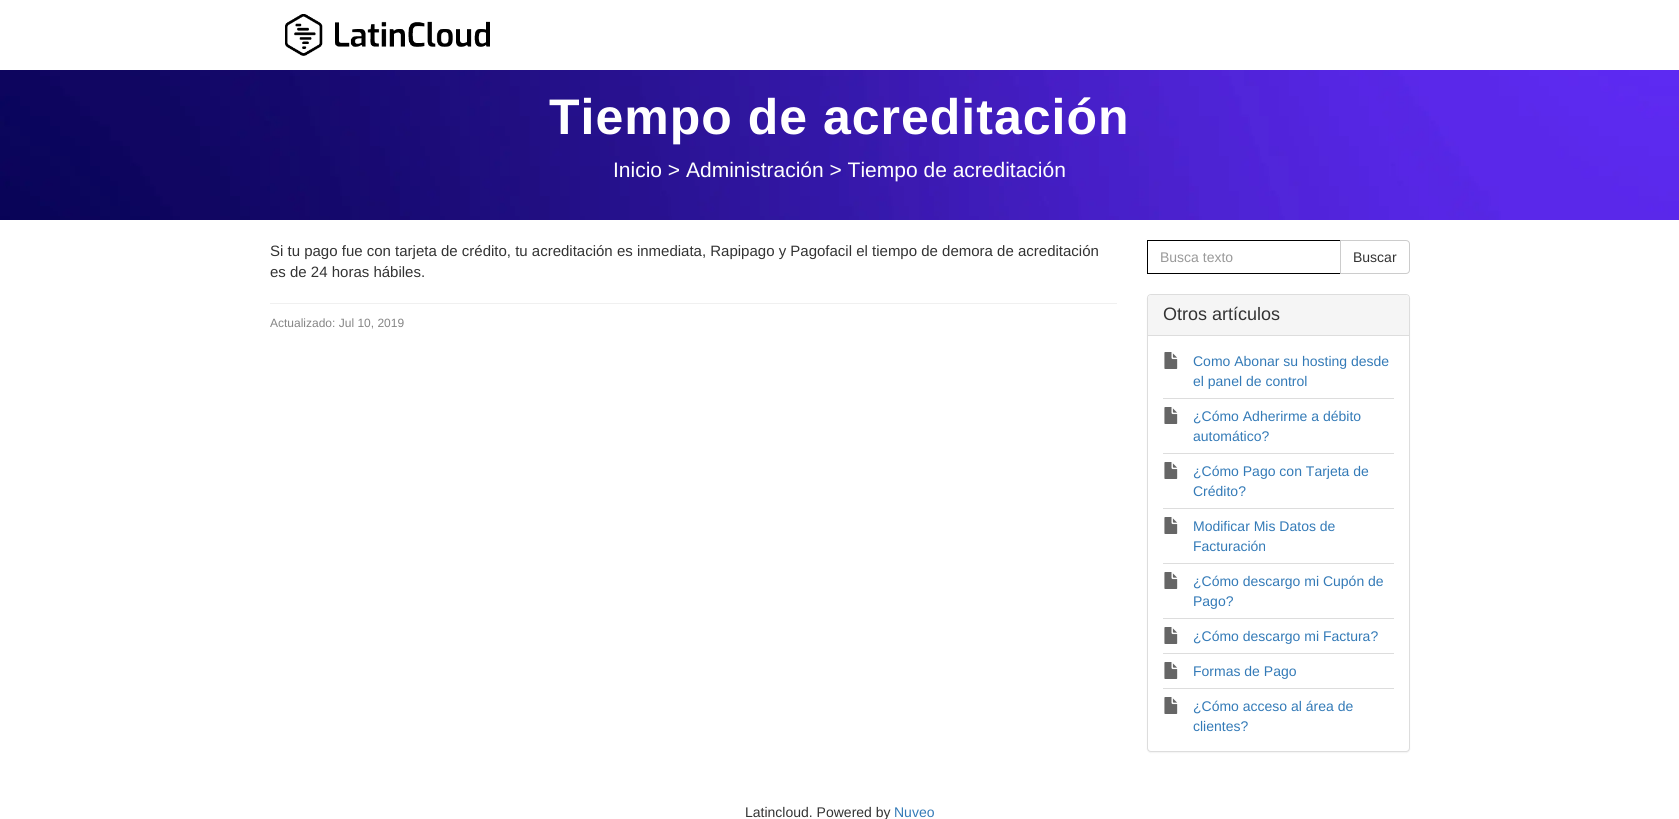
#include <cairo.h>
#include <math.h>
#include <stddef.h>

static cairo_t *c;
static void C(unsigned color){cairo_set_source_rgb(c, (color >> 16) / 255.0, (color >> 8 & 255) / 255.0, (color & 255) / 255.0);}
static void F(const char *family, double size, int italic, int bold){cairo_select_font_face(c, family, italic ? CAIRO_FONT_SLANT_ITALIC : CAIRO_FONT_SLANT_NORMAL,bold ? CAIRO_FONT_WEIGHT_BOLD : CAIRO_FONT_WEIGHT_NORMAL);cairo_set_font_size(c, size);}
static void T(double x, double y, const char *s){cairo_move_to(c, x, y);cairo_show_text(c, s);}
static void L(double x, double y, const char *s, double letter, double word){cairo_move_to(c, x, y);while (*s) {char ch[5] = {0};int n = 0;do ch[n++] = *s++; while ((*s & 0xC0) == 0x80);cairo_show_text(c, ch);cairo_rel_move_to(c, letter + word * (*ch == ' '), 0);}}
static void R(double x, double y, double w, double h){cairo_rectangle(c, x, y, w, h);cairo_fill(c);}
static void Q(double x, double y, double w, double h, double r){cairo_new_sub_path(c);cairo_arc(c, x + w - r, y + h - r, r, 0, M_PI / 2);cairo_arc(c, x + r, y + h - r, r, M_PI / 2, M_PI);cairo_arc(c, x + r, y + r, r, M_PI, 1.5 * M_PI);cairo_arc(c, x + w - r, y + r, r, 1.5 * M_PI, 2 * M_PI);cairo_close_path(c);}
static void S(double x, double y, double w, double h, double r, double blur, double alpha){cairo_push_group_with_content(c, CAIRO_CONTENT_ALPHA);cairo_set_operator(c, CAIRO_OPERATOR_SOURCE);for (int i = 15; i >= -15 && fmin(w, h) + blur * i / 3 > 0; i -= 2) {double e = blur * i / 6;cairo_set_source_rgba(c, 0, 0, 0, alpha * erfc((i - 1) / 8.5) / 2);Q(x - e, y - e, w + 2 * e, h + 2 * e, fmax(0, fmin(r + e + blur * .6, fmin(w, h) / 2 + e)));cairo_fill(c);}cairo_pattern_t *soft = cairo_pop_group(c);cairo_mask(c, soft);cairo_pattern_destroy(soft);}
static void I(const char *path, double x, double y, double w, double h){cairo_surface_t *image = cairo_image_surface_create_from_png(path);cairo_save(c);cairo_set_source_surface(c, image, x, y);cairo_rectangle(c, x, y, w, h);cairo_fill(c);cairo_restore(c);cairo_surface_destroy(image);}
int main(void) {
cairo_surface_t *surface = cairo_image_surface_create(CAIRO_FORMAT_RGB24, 1679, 819);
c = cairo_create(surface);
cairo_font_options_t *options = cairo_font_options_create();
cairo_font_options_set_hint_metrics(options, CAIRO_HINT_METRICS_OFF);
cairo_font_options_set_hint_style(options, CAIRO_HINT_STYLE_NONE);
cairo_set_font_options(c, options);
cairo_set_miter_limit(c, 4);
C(0xffffff);
cairo_paint(c);
I("1.png",285,14,205,42);
I("2.png",0,70,1679,150);
F("Liberation Sans",50,0,1);
C(0xffffff);
L(549,134,"Tiempo de acreditación",1,0);
F("Liberation Sans",21,0,0);
T(613,177,"Inicio > Administración > Tiempo de acreditación");
F("Liberation Sans",15,0,0);
C(0x333333);
T(270,256,"Si tu pago fue con tarjeta de crédito, tu acreditación es inmediata, Rapipago y Pagofacil el tiempo de demora de acreditación");
T(270,277,"es de 24 horas hábiles.");
C(0xf0f0f0);
R(270,303,847,1);
F("Liberation Sans",12,0,0);
C(0x858585);
T(270,327,"Actualizado: Jul 10, 2019");
cairo_rectangle(c,1147.5,240.5,193,33);
C(0x000000);
cairo_set_line_width(c,1);
cairo_stroke(c);
F("Liberation Sans",14,0,0);
C(0x999999);
T(1160,262,"Busca texto");
C(0xffffff);
cairo_new_path(c);
cairo_move_to(c,1340.5,240.5);
cairo_line_to(c,1406,240.5);
cairo_curve_to(c,1408,240.5,1409.5,242,1409.5,244);
cairo_line_to(c,1409.5,270);
cairo_curve_to(c,1409.5,272,1408,273.5,1406,273.5);
cairo_line_to(c,1340.5,273.5);
cairo_close_path(c);
cairo_fill_preserve(c);
C(0xcccccc);
cairo_stroke(c);
C(0x333333);
T(1353,262,"Buscar");
C(0x000000);
S(1147,295,263,458,4,.5,.05);
C(0xffffff);
Q(1147.5,294.5,262,457,3.5);
cairo_fill_preserve(c);
C(0xdddddd);
cairo_stroke(c);
C(0xf5f5f5);
cairo_new_path(c);
cairo_move_to(c,1151,295);
cairo_line_to(c,1406,295);
cairo_curve_to(c,1407.5,295,1409,296.5,1409,298);
cairo_line_to(c,1409,336);
cairo_line_to(c,1148,336);
cairo_line_to(c,1148,298);
cairo_curve_to(c,1148,296.5,1149.5,295,1151,295);
cairo_close_path(c);
cairo_fill(c);
C(0xdddddd);
R(1148,335,261,1);
F("Liberation Sans",18,0,0);
C(0x333333);
T(1163,320,"Otros artículos");
C(0xdddddd);
R(1163,398,231,1);
I("3.png",1164,352,14,17);
F("Liberation Sans",14,0,0);
C(0x337ab7);
T(1193,366,"Como Abonar su hosting desde");
T(1193,386,"el panel de control");
C(0xdddddd);
R(1163,453,231,1);
I("3.png",1164,407,14,17);
C(0x337ab7);
T(1193,421,"¿Cómo Adherirme a débito");
T(1193,441,"automático?");
C(0xdddddd);
R(1163,508,231,1);
I("3.png",1164,462,14,17);
C(0x337ab7);
T(1193,476,"¿Cómo Pago con Tarjeta de");
T(1193,496,"Crédito?");
C(0xdddddd);
R(1163,563,231,1);
I("3.png",1164,517,14,17);
C(0x337ab7);
T(1193,531,"Modificar Mis Datos de");
T(1193,551,"Facturación");
C(0xdddddd);
R(1163,618,231,1);
I("3.png",1164,572,14,17);
C(0x337ab7);
T(1193,586,"¿Cómo descargo mi Cupón de");
T(1193,606,"Pago?");
C(0xdddddd);
R(1163,653,231,1);
I("3.png",1164,627,14,17);
C(0x337ab7);
T(1193,641,"¿Cómo descargo mi Factura?");
I("3.png",1164,662,14,17);
T(1193,676,"Formas de Pago");
C(0xdddddd);
R(1163,688,231,1);
I("3.png",1164,697,14,17);
C(0x337ab7);
T(1193,711,"¿Cómo acceso al área de");
T(1193,731,"clientes?");
C(0x333333);
T(745,817,"Latincloud. Powered by");
C(0x337ab7);
T(894,817,"Nuveo");
cairo_surface_write_to_png(surface, "o.png");
cairo_font_options_destroy(options);
cairo_destroy(c);
cairo_surface_destroy(surface);
return 0;
}
